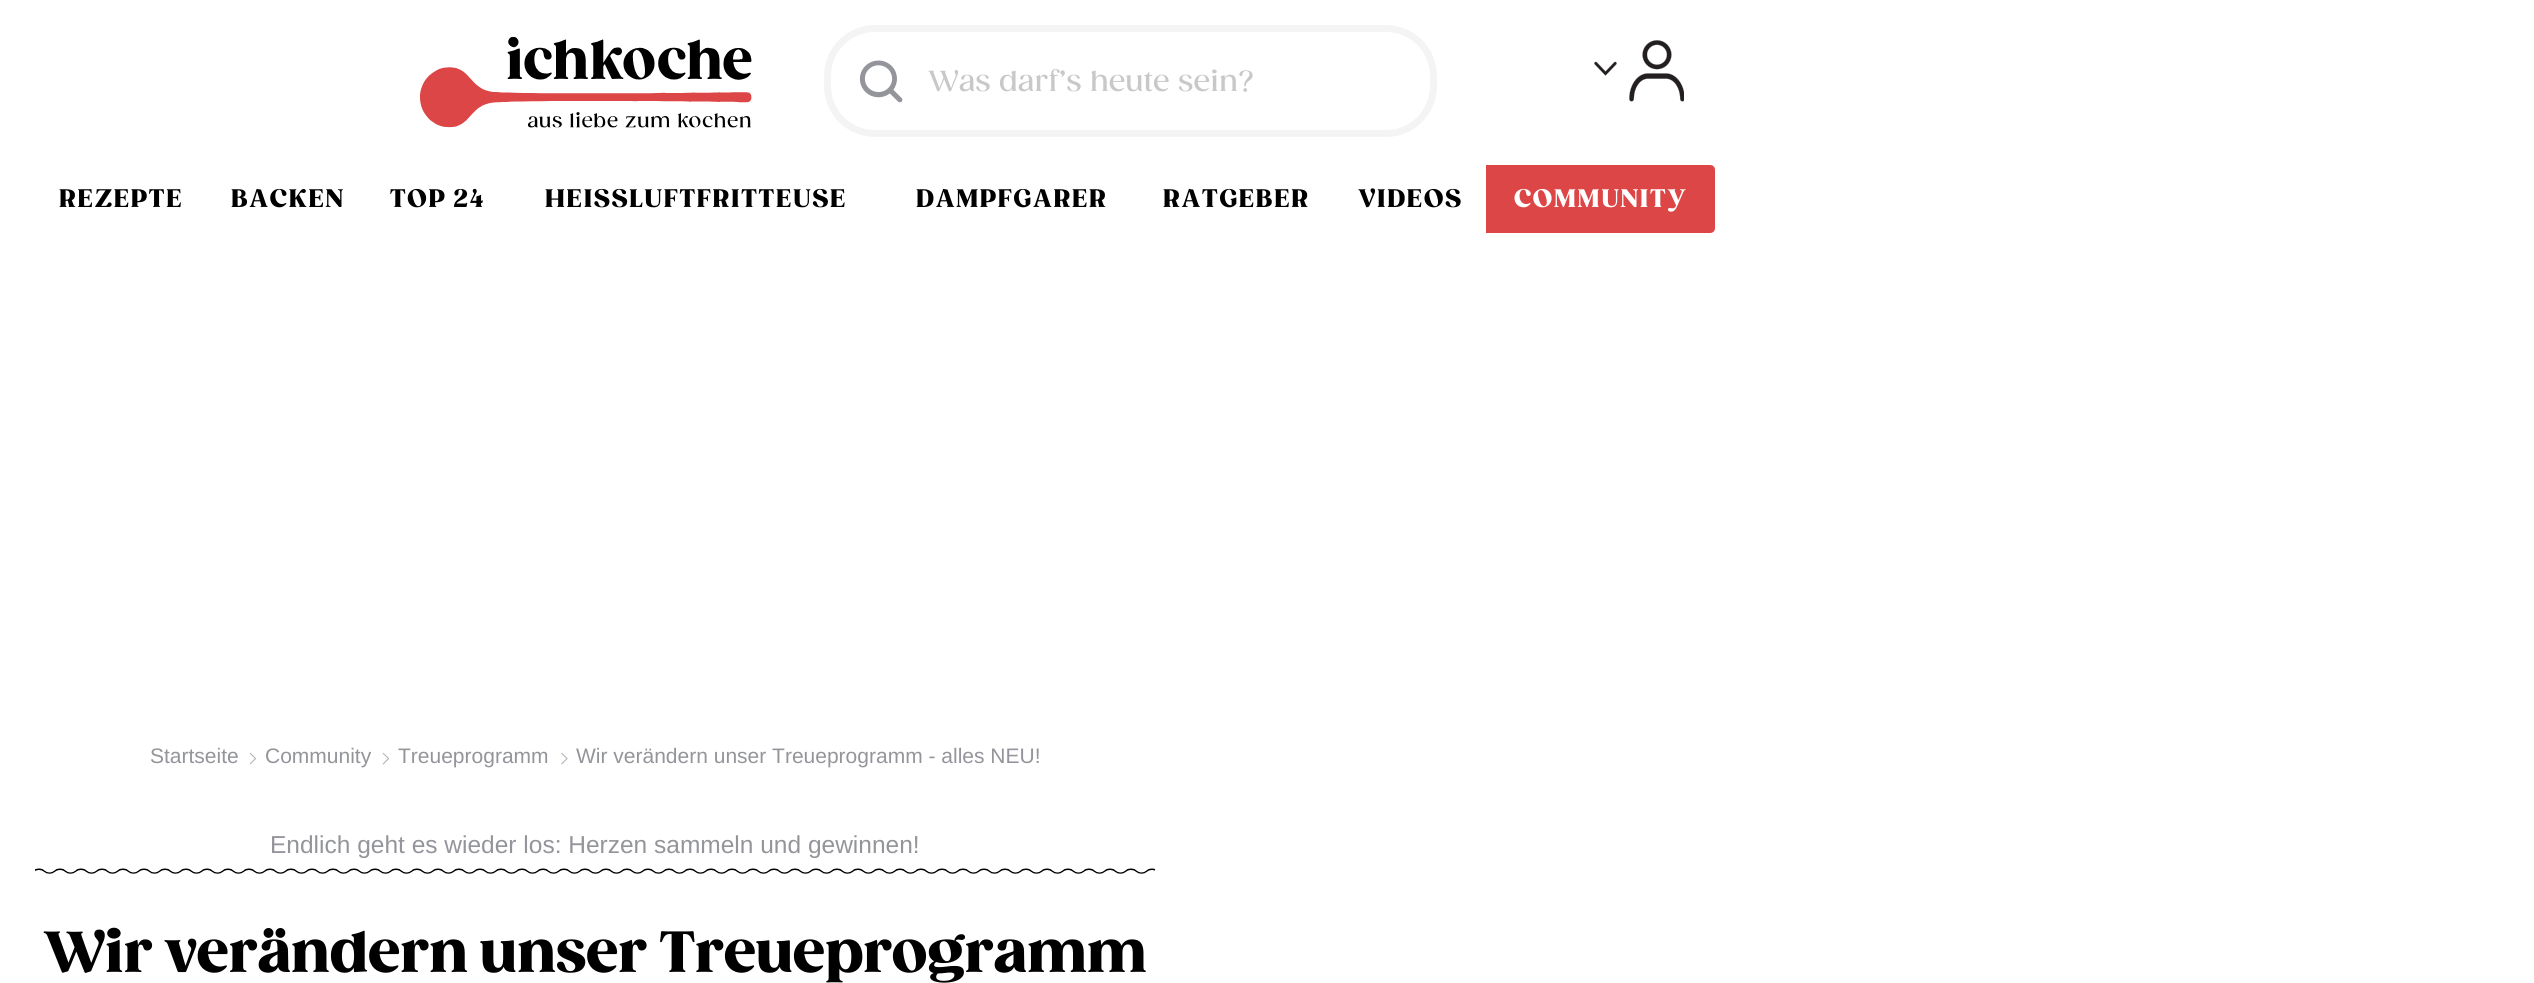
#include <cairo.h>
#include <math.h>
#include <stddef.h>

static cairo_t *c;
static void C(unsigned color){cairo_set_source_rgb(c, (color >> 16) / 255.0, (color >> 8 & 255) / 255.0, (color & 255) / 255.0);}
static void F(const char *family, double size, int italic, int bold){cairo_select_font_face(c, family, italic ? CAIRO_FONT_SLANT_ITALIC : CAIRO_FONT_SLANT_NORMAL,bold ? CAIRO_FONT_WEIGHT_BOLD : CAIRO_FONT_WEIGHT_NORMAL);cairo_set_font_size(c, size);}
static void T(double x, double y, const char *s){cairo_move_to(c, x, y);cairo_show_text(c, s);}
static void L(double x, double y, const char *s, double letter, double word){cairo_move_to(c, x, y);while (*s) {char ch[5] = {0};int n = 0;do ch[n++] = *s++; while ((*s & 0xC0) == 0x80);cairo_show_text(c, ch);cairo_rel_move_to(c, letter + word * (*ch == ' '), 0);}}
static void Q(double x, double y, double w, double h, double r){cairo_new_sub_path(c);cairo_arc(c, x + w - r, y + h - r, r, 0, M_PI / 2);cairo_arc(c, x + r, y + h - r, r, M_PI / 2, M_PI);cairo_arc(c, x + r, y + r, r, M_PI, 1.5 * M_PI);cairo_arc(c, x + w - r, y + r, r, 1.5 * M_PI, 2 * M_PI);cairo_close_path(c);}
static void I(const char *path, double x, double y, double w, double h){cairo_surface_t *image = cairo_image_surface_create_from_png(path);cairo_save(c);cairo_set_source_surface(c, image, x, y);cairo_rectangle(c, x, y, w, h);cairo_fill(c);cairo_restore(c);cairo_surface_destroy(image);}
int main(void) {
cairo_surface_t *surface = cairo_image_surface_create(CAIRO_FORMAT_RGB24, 2534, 983);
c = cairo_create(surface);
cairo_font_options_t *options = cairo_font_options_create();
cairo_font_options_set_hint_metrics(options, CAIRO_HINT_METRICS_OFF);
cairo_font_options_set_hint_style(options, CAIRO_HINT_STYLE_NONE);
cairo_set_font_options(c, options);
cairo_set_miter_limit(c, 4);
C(0xffffff);
cairo_paint(c);
I("1.png",420,37,332,91);
Q(827.5,28.5,606,105,47.5);
C(0xf4f4f4);
cairo_set_line_width(c,7);
cairo_stroke(c);
I("2.png",859,60,44,43);
F("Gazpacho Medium",28,0,0);
C(0xc8c8c8);
T(928,91,"Was darf’s heute sein?");
I("3.png",1594,40,90,62);
F("Gazpacho Black",24.5,0,0);
C(0x000000);
L(59,207,"REZEPTE",1.75,0);
L(231,207,"BACKEN",1.75,0);
L(390,207,"TOP 24",1.75,0);
L(545,207,"HEISSLUFTFRITTEUSE",1.75,0);
L(916,207,"DAMPFGARER",1.75,0);
L(1163,207,"RATGEBER",1.75,0);
L(1358,207,"VIDEOS",1.75,0);
C(0xdc4646);
cairo_new_path(c);
cairo_move_to(c,1486,165);
cairo_line_to(c,1710,165);
cairo_curve_to(c,1713,165,1715,167,1715,170);
cairo_line_to(c,1715,228);
cairo_curve_to(c,1715,231,1713,233,1710,233);
cairo_line_to(c,1486,233);
cairo_close_path(c);
cairo_fill(c);
C(0xffffff);
L(1514,207,"COMMUNITY",1.75,0);
F("Liberation Sans",21,0,0);
C(0x94959a);
T(150,763,"Startseite");
I("4.png",249,752,7,13);
T(265,763,"Community");
I("4.png",382,752,7,13);
T(398,763,"Treueprogramm");
I("5.png",561,752,7,13);
T(576,763,"Wir verändern unser Treueprogramm - alles NEU!");
F("Liberation Sans",24.5,0,0);
T(270,853,"Endlich geht es wieder los: Herzen sammeln und gewinnen!");
I("6.png",35,868,1120,6);
F("Gazpacho Black",56,0,0);
C(0x000000);
T(43,972,"Wir verändern unser Treueprogramm");
cairo_surface_write_to_png(surface, "o.png");
cairo_font_options_destroy(options);
cairo_destroy(c);
cairo_surface_destroy(surface);
return 0;
}
